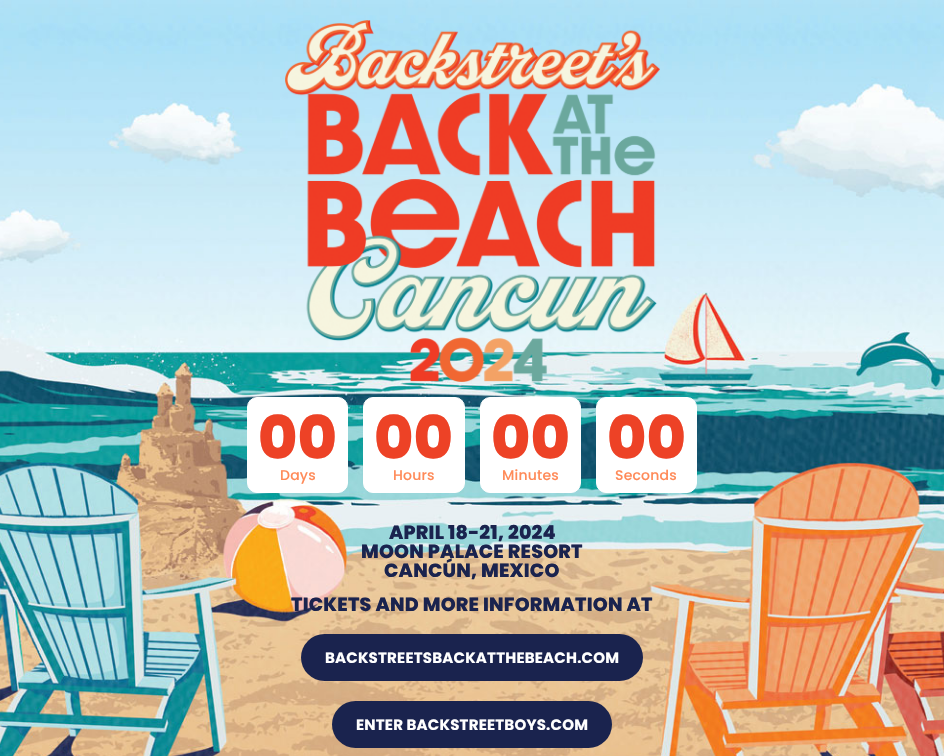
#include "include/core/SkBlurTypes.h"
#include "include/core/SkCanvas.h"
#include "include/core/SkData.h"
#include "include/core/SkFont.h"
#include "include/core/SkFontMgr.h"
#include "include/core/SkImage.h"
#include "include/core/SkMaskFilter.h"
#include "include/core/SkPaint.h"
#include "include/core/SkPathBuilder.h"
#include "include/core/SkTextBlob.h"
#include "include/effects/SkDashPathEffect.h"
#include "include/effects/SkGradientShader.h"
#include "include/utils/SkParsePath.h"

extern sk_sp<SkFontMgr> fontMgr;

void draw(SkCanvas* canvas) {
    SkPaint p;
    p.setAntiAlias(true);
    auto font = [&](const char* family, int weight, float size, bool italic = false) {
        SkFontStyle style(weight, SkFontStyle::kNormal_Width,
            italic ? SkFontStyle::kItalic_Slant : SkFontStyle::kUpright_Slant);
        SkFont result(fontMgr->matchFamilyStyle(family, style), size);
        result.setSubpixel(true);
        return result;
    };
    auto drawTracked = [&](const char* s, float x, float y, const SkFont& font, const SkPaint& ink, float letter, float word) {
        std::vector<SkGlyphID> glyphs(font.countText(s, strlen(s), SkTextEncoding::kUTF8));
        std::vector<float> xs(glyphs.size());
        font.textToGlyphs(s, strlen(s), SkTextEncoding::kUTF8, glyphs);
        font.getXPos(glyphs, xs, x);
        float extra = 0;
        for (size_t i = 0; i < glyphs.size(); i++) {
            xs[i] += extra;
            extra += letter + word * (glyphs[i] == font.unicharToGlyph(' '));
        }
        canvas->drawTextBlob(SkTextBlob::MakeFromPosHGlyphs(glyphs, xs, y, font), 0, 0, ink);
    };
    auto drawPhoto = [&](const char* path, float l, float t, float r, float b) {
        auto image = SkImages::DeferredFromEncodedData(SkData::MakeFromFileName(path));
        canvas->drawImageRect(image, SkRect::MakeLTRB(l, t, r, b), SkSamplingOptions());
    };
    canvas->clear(0xFFFFFFFF);
    drawPhoto("media/1.png", 0, 0, 944, 756);
    drawPhoto("media/2.png", 285, 20, 660, 382);
    p.setColor(0xFFFFFFFF);
    canvas->drawRoundRect(SkRect::MakeLTRB(247.5f, 397.5f, 347.5f, 492.5f), 9.5f, 9.5f, p);
    p.setStyle(SkPaint::kStroke_Style);
    p.setStrokeWidth(1);
    canvas->drawRoundRect(SkRect::MakeLTRB(247.5f, 397.5f, 347.5f, 492.5f), 9.5f, 9.5f, p);
    auto font1 = font("Poppins", 800, 60);
    p.setStyle(SkPaint::kFill_Style);
    p.setColor(0xFFED4226);
    drawTracked("00", 258, 459, font1, p, 0.2f, 0);
    auto font2 = font("Poppins", 500, 14);
    p.setColor(0xFFFF8A58);
    drawTracked("Days", 280, 480, font2, p, 0.2f, 0);
    p.setColor(0xFFFFFFFF);
    canvas->drawRoundRect(SkRect::MakeLTRB(363.5f, 397.5f, 464.5f, 492.5f), 9.5f, 9.5f, p);
    p.setStyle(SkPaint::kStroke_Style);
    canvas->drawRoundRect(SkRect::MakeLTRB(363.5f, 397.5f, 464.5f, 492.5f), 9.5f, 9.5f, p);
    p.setStyle(SkPaint::kFill_Style);
    p.setColor(0xFFED4226);
    drawTracked("00", 374, 459, font1, p, 0.2f, 0);
    p.setColor(0xFFFF8A58);
    drawTracked("Hours", 393, 480, font2, p, 0.2f, 0);
    p.setColor(0xFFFFFFFF);
    canvas->drawRoundRect(SkRect::MakeLTRB(480.5f, 397.5f, 580.5f, 492.5f), 9.5f, 9.5f, p);
    p.setStyle(SkPaint::kStroke_Style);
    canvas->drawRoundRect(SkRect::MakeLTRB(480.5f, 397.5f, 580.5f, 492.5f), 9.5f, 9.5f, p);
    p.setStyle(SkPaint::kFill_Style);
    p.setColor(0xFFED4226);
    drawTracked("00", 491, 459, font1, p, 0.2f, 0);
    p.setColor(0xFFFF8A58);
    drawTracked("Minutes", 502, 480, font2, p, 0.2f, 0);
    p.setColor(0xFFFFFFFF);
    canvas->drawRoundRect(SkRect::MakeLTRB(596.5f, 397.5f, 696.5f, 492.5f), 9.5f, 9.5f, p);
    p.setStyle(SkPaint::kStroke_Style);
    canvas->drawRoundRect(SkRect::MakeLTRB(596.5f, 397.5f, 696.5f, 492.5f), 9.5f, 9.5f, p);
    p.setStyle(SkPaint::kFill_Style);
    p.setColor(0xFFED4226);
    drawTracked("00", 607, 459, font1, p, 0.2f, 0);
    p.setColor(0xFFFF8A58);
    drawTracked("Seconds", 615, 480, font2, p, 0.2f, 0);
    auto font3 = font("Poppins", 800, 19);
    p.setColor(0xFF1A234E);
    {
        const struct { const char* s; float x, y; } items[] = {
            {"APRIL 18-21, 2024", 389, 539},
            {"MOON PALACE RESORT", 361, 558},
            {"CANCÚN, MEXICO", 384, 577},
            {"TICKETS AND MORE INFORMATION AT", 291, 611},
        };
        for (auto [s, x, y] : items) {
            drawTracked(s, x, y, font3, p, 0.2f, 0);
        }
    }
    canvas->drawRoundRect(SkRect::MakeLTRB(301, 634, 643, 681), 23.5f, 23.5f, p);
    auto font4 = font("Poppins", 700, 15);
    p.setColor(0xFFFFFFFF);
    drawTracked("BACKSTREETSBACKATTHEBEACH.COM", 325, 663, font4, p, 0.2f, 0);
    p.setColor(0xFF1A234E);
    canvas->drawRoundRect(SkRect::MakeLTRB(332, 701, 612, 748), 23.5f, 23.5f, p);
    p.setColor(0xFFFFFFFF);
    drawTracked("ENTER BACKSTREETBOYS.COM", 356, 730, font4, p, 0.2f, 0);
}
